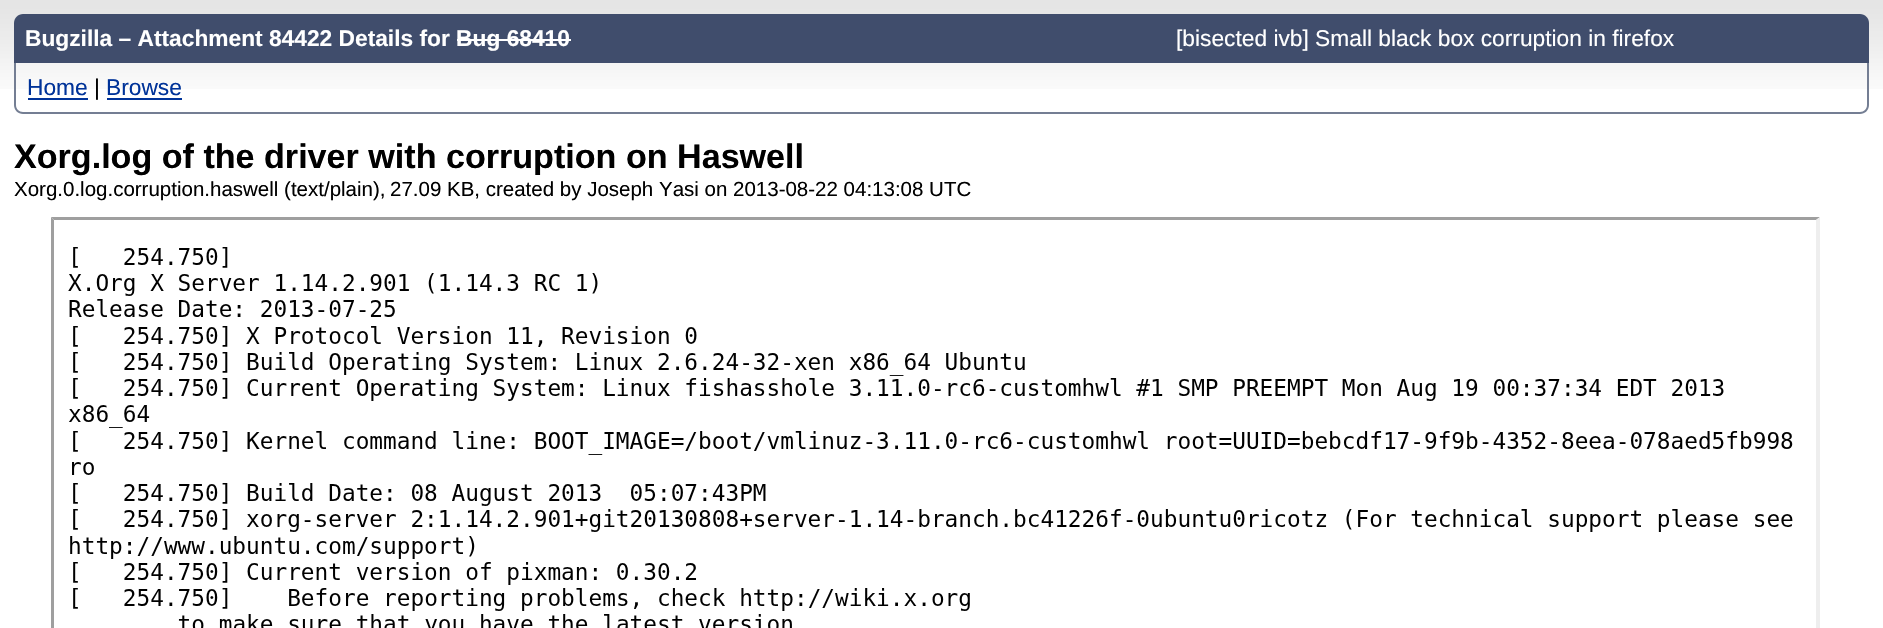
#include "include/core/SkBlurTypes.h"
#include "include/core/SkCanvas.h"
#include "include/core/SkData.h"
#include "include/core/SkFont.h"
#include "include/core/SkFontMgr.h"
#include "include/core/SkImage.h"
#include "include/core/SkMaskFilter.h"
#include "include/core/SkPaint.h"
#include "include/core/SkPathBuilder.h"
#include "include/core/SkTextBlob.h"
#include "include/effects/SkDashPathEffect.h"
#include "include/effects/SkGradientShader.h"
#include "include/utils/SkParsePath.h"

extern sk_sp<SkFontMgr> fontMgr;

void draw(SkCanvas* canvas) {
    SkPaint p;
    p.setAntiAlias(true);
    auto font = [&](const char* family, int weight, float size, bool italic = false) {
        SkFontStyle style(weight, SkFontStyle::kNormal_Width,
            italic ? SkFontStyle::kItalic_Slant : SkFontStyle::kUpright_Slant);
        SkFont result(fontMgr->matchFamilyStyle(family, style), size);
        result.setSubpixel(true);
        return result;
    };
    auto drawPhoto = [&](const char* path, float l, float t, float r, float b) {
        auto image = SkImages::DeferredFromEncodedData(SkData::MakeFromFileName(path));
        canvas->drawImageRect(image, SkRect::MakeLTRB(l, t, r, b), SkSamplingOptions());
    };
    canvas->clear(0xFFFFFFFF);
    drawPhoto("media/1.png", 0, 0, 1883, 89);
    p.setColor(0xFF404D6C);
    canvas->drawPath(SkPathBuilder().moveTo(23, 14).lineTo(1860, 14).cubicTo(1865, 14, 1869, 18, 1869, 23).lineTo(1869, 63).lineTo(14, 63).lineTo(14, 23).cubicTo(14, 18, 18, 14, 23, 14).close().detach(), p);
    auto font1 = font("Liberation Sans", 700, 22.75f);
    p.setColor(0xFFFFFFFF);
    canvas->drawString("Bugzilla – Attachment 84422 Details for Bug 68410", 25, 46, font1, p);
    canvas->drawRect(SkRect::MakeLTRB(457, 39, 571, 41), p);
    auto font2 = font("Liberation Sans", 400, 22.75f);
    canvas->drawString("[bisected ivb] Small black box corruption in firefox", 1176, 46, font2, p);
    p.setColor(0xFF747E93);
    canvas->drawPath(SkPathBuilder(SkPathFillType::kEvenOdd).moveTo(14, 63).lineTo(1869, 63).lineTo(1869, 105).cubicTo(1869, 110, 1865, 114, 1860, 114).lineTo(23, 114).cubicTo(18, 114, 14, 110, 14, 105).close().moveTo(16, 63).lineTo(1867, 63).lineTo(1867, 105).cubicTo(1867, 109, 1864, 112, 1860, 112).lineTo(23, 112).cubicTo(19, 112, 16, 109, 16, 105).close().detach(), p);
    p.setColor(0xFF003399);
    canvas->drawString("Home", 27, 95, font2, p);
    canvas->drawRect(SkRect::MakeLTRB(28, 98, 88, 100), p);
    p.setColor(0xFF000000);
    canvas->drawString("|", 94, 95, font2, p);
    p.setColor(0xFF003399);
    canvas->drawString("Browse", 106, 95, font2, p);
    canvas->drawRect(SkRect::MakeLTRB(107, 98, 182, 100), p);
    auto font3 = font("Liberation Sans", 700, 34.1f);
    p.setColor(0xFF000000);
    canvas->drawString("Xorg.log of the driver with corruption on Haswell", 14, 168, font3, p);
    auto font4 = font("Liberation Sans", 400, 20.5f);
    canvas->drawString("Xorg.0.log.corruption.haswell (text/plain),", 14, 196, font4, p);
    canvas->drawString("27.09 KB, created by Joseph Yasi on 2013-08-22 04:13:08 UTC", 390, 196, font4, p);
    p.setColor(0xFF9F9F9F);
    canvas->drawPath(SkPathBuilder().moveTo(51, 217).lineTo(1820, 217).lineTo(1816, 220).lineTo(54, 220).close().detach(), p);
    canvas->drawPath(SkPathBuilder().moveTo(51, 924).lineTo(51, 217).lineTo(54, 220).lineTo(54, 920).close().detach(), p);
    drawPhoto("media/2.png", 68, 247, 1793, 628);
    p.setColor(0xFFEEEEEE);
    canvas->drawPath(SkPathBuilder().moveTo(1820, 217).lineTo(1820, 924).lineTo(1816, 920).lineTo(1816, 220).close().detach(), p);
}
